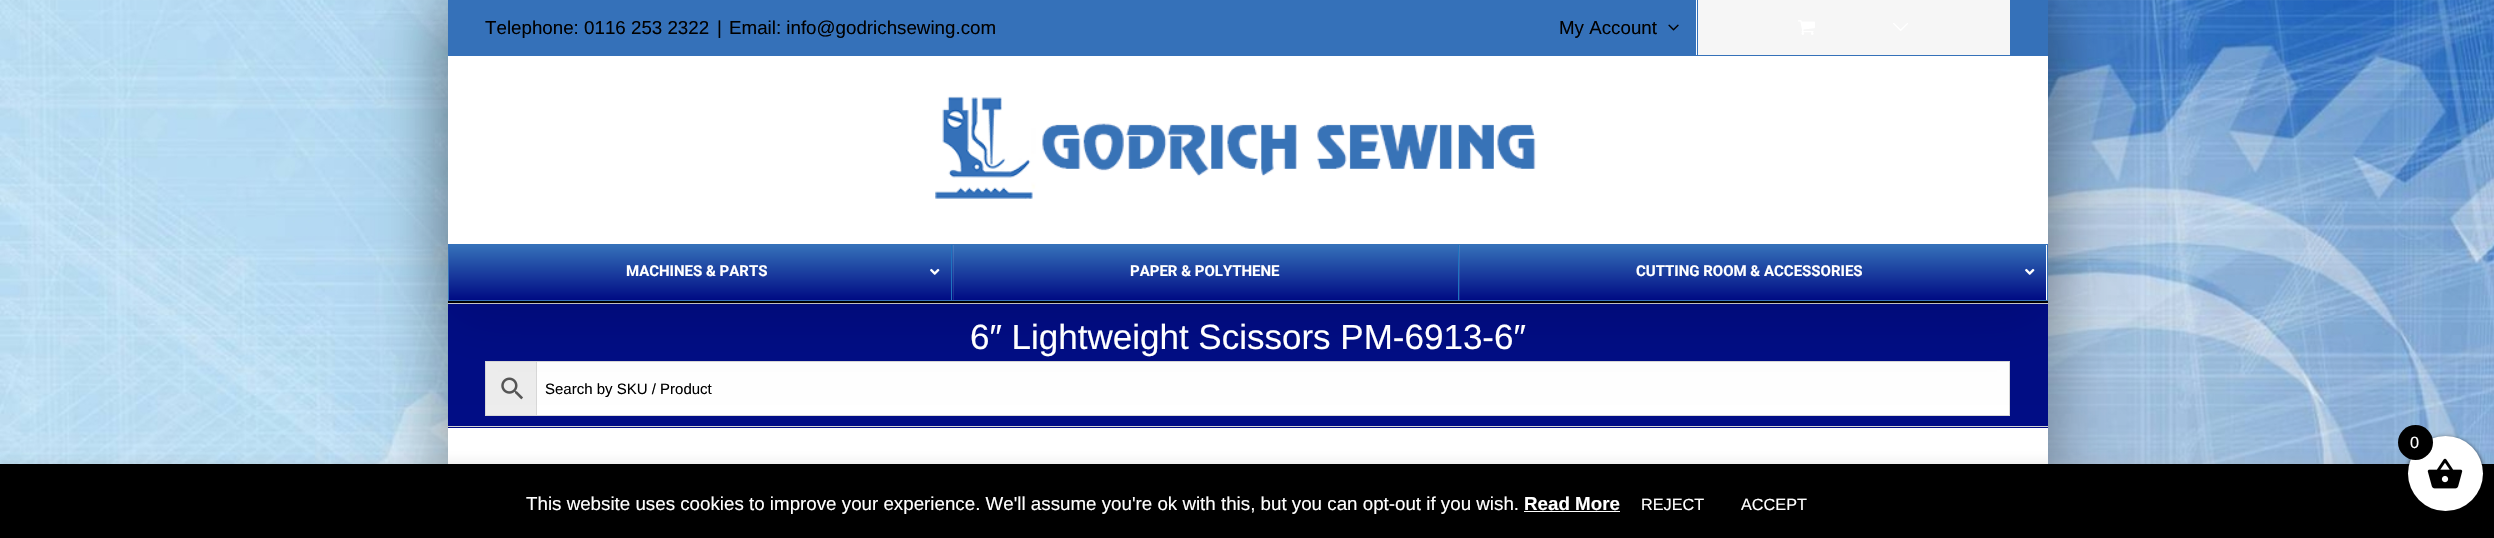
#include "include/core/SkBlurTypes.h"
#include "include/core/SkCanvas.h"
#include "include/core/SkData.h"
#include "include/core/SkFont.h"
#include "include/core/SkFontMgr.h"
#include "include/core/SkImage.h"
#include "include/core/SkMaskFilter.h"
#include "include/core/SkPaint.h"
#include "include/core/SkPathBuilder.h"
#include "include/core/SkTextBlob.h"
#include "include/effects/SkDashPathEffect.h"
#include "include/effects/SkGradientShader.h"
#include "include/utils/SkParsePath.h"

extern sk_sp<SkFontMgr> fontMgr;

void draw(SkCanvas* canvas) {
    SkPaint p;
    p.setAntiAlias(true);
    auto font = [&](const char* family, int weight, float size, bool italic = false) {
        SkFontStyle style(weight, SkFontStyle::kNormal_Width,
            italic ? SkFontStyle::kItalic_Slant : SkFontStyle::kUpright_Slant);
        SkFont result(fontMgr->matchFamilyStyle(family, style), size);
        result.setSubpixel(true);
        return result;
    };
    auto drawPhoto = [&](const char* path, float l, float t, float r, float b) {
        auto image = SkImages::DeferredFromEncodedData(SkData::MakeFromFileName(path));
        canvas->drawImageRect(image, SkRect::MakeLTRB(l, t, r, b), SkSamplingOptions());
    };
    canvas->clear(0xFFFFFFFF);
    drawPhoto("media/1.png", 0, 0, 2494, 464);
    p.setColor(0x59000000);
    p.setMaskFilter(SkMaskFilter::MakeBlur(kNormal_SkBlurStyle, 31));
    canvas->drawRect(SkRect::MakeLTRB(441, -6, 2054, 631), p);
    p.setMaskFilter(nullptr);
    {
        const struct { float l, t, r, b; SkColor color; } items[] = {
            {448, 304, 2048, 428, 0xFF010D85},
            {448, 303, 2048, 304, 0xFFD2D3D4},
            {486, 362, 536, 415, 0xFFEDEDED},
        };
        for (auto [l, t, r, b, color] : items) {
            p.setColor(color);
            canvas->drawRect(SkRect::MakeLTRB(l, t, r, b), p);
        }
    }
    p.setStyle(SkPaint::kStroke_Style);
    p.setStrokeWidth(1);
    p.setColor(0xFFD8D8D8);
    canvas->drawRect(SkRect::MakeLTRB(485.5f, 361.5f, 537.5f, 415.5f), p);
    drawPhoto("media/7.png", 501, 377, 523, 400);
    p.setStyle(SkPaint::kFill_Style);
    p.setColor(0xFFFFFFFF);
    canvas->drawRect(SkRect::MakeLTRB(536.5f, 361.5f, 2009.5f, 415.5f), p);
    p.setStyle(SkPaint::kStroke_Style);
    p.setColor(0xFFD8D8D8);
    canvas->drawRect(SkRect::MakeLTRB(536.5f, 361.5f, 2009.5f, 415.5f), p);
    p.setStyle(SkPaint::kFill_Style);
    p.setColor(0x24000000);
    p.setMaskFilter(SkMaskFilter::MakeBlur(kNormal_SkBlurStyle, 31));
    canvas->drawRect(SkRect::MakeLTRB(450, 15, 2045, 313), p);
    p.setMaskFilter(nullptr);
    p.setColor(0xFF3571B9);
    canvas->drawRect(SkRect::MakeLTRB(448, 0, 2048, 56), p);
    auto font1 = font("Liberation Sans", 400, 18.75f);
    p.setColor(0xFF000000);
    {
        const struct { const char* s; float x, y; } items[] = {
            {"Telephone: 0116 253 2322", 485, 34},
            {"|", 717, 34},
            {"Email: info@godrichsewing.com", 729, 34},
            {"My Account", 1559, 34},
        };
        for (auto [s, x, y] : items) {
            canvas->drawString(s, x, y, font1, p);
        }
    }
    drawPhoto("media/2.png", 1668, 24, 1679, 31);
    p.setColor(0xFFFFFFFF);
    canvas->drawRect(SkRect::MakeLTRB(1696, 0, 1697, 55), p);
    p.setColor(0xFFF6F6F6);
    canvas->drawRect(SkRect::MakeLTRB(1698, 0, 2010, 55), p);
    drawPhoto("media/3.png", 1798, 20, 1815, 35);
    drawPhoto("media/4.png", 1893, 23, 1908, 31);
    p.setColor(0xFFFFFFFF);
    canvas->drawRect(SkRect::MakeLTRB(448, 56, 2048, 244), p);
    drawPhoto("media/5.png", 935, 96, 1536, 199);
    p.setColor(0xFF000000);
    canvas->drawRect(SkRect::MakeLTRB(448, 301, 2048, 303), p);
    p.setColor(0xFFFFFFFF);
    canvas->drawRect(SkRect::MakeLTRB(2046, 245, 2047, 300), p);
    p.setStyle(SkPaint::kStroke_Style);
    p.setColor(0xFF3571B9);
    canvas->drawRect(SkRect::MakeLTRB(448.5f, 244.5f, 2047.5f, 300.5f), p);
    p.setStyle(SkPaint::kFill_Style);
    {
        const SkColor colors[] = {0xFF3571B9, 0xFF000B84};
        const float stops[] = {0, 1};
        const SkPoint ends[] = {{700, 245}, {700, 300}};
        p.setShader(SkGradientShader::MakeLinear(ends, colors, stops, 2, SkTileMode::kClamp));
        p.setAlpha(255);
    }
    canvas->drawRect(SkRect::MakeLTRB(449, 245, 951, 300), p);
    auto font2 = font("Roboto", 700, 15);
    p.setShader(nullptr);
    p.setColor(0xFFFFFFFF);
    canvas->drawString("MACHINES & PARTS", 626, 276, font2, p);
    drawPhoto("media/6.png", 930, 268, 940, 275);
    {
        const SkColor colors[] = {0xFF3571B9, 0xFF000B84};
        const float stops[] = {0, 1};
        const SkPoint ends[] = {{1205, 245}, {1205, 300}};
        p.setShader(SkGradientShader::MakeLinear(ends, colors, stops, 2, SkTileMode::kClamp));
        p.setAlpha(255);
    }
    canvas->drawRect(SkRect::MakeLTRB(952, 245, 1458, 300), p);
    p.setShader(nullptr);
    p.setColor(0x1AFFFFFF);
    canvas->drawRect(SkRect::MakeLTRB(953, 245, 954, 300), p);
    p.setColor(0xFF1E73BE);
    canvas->drawRect(SkRect::MakeLTRB(951, 245, 952, 300), p);
    p.setColor(0xFFFFFFFF);
    canvas->drawString("PAPER & POLYTHENE", 1130, 276, font2, p);
    {
        const SkColor colors[] = {0xFF3571B9, 0xFF000B84};
        const float stops[] = {0, 1};
        const SkPoint ends[] = {{1753, 245}, {1753, 300}};
        p.setShader(SkGradientShader::MakeLinear(ends, colors, stops, 2, SkTileMode::kClamp));
        p.setAlpha(255);
    }
    canvas->drawRect(SkRect::MakeLTRB(1459, 245, 2046, 300), p);
    p.setShader(nullptr);
    p.setColor(0x1AFFFFFF);
    canvas->drawRect(SkRect::MakeLTRB(1459, 245, 1460, 300), p);
    p.setColor(0xFF1E73BE);
    canvas->drawRect(SkRect::MakeLTRB(1458, 245, 1459, 300), p);
    p.setColor(0xFFFFFFFF);
    canvas->drawString("CUTTING ROOM & ACCESSORIES", 1636, 276, font2, p);
    drawPhoto("media/6.png", 2025, 268, 2035, 275);
    p.setColor(0xFFD2D3D4);
    canvas->drawRect(SkRect::MakeLTRB(448, 426, 2048, 427), p);
    auto font3 = font("Liberation Sans", 400, 35);
    p.setColor(0xFFFFFFFF);
    canvas->drawString("6″ Lightweight Scissors PM-6913-6″", 970, 349, font3, p);
    auto font4 = font("Liberation Sans", 400, 15);
    p.setColor(0xFF000000);
    canvas->drawString("Search by SKU / Product", 545, 394, font4, p);
    p.setColor(0xFFFFFFFF);
    canvas->drawRect(SkRect::MakeLTRB(448, 428, 2048, 464), p);
    p.setColor(0x4DACABAB);
    p.setMaskFilter(SkMaskFilter::MakeBlur(kNormal_SkBlurStyle, 6));
    canvas->drawRect(SkRect::MakeLTRB(0, 463, 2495, 538), p);
    p.setMaskFilter(nullptr);
    p.setColor(0xFF000000);
    canvas->drawRect(SkRect::MakeLTRB(0, 464, 2494, 538), p);
    p.setMaskFilter(SkMaskFilter::MakeBlur(kNormal_SkBlurStyle, 2.5f));
    canvas->drawRoundRect(SkRect::MakeLTRB(2408, 438, 2483, 513), 37.5f, 37.5f, p);
    p.setMaskFilter(nullptr);
    p.setColor(0xFFFFFFFF);
    canvas->drawCircle(2445.5f, 473.5f, 37.5f, p);
    drawPhoto("media/8.png", 2427, 458, 2463, 489);
    p.setColor(0xFF000000);
    canvas->drawCircle(2415.5f, 442.5f, 17.5f, p);
    auto font5 = font("Liberation Sans", 400, 16.25f);
    p.setColor(0xFFFFFFFF);
    canvas->drawString("0", 2410, 448, font5, p);
    canvas->drawString("This website uses cookies to improve your experience. We'll assume you're ok with this, but you can opt-out if you wish.", 526, 510, font1, p);
    auto font6 = font("Liberation Sans", 700, 18.75f);
    canvas->drawString("Read More", 1524, 510, font6, p);
    canvas->drawRect(SkRect::MakeLTRB(1524, 511, 1620, 512), p);
    canvas->drawString("REJECT", 1641, 510, font5, p);
    canvas->drawString("ACCEPT", 1741, 510, font5, p);
}
